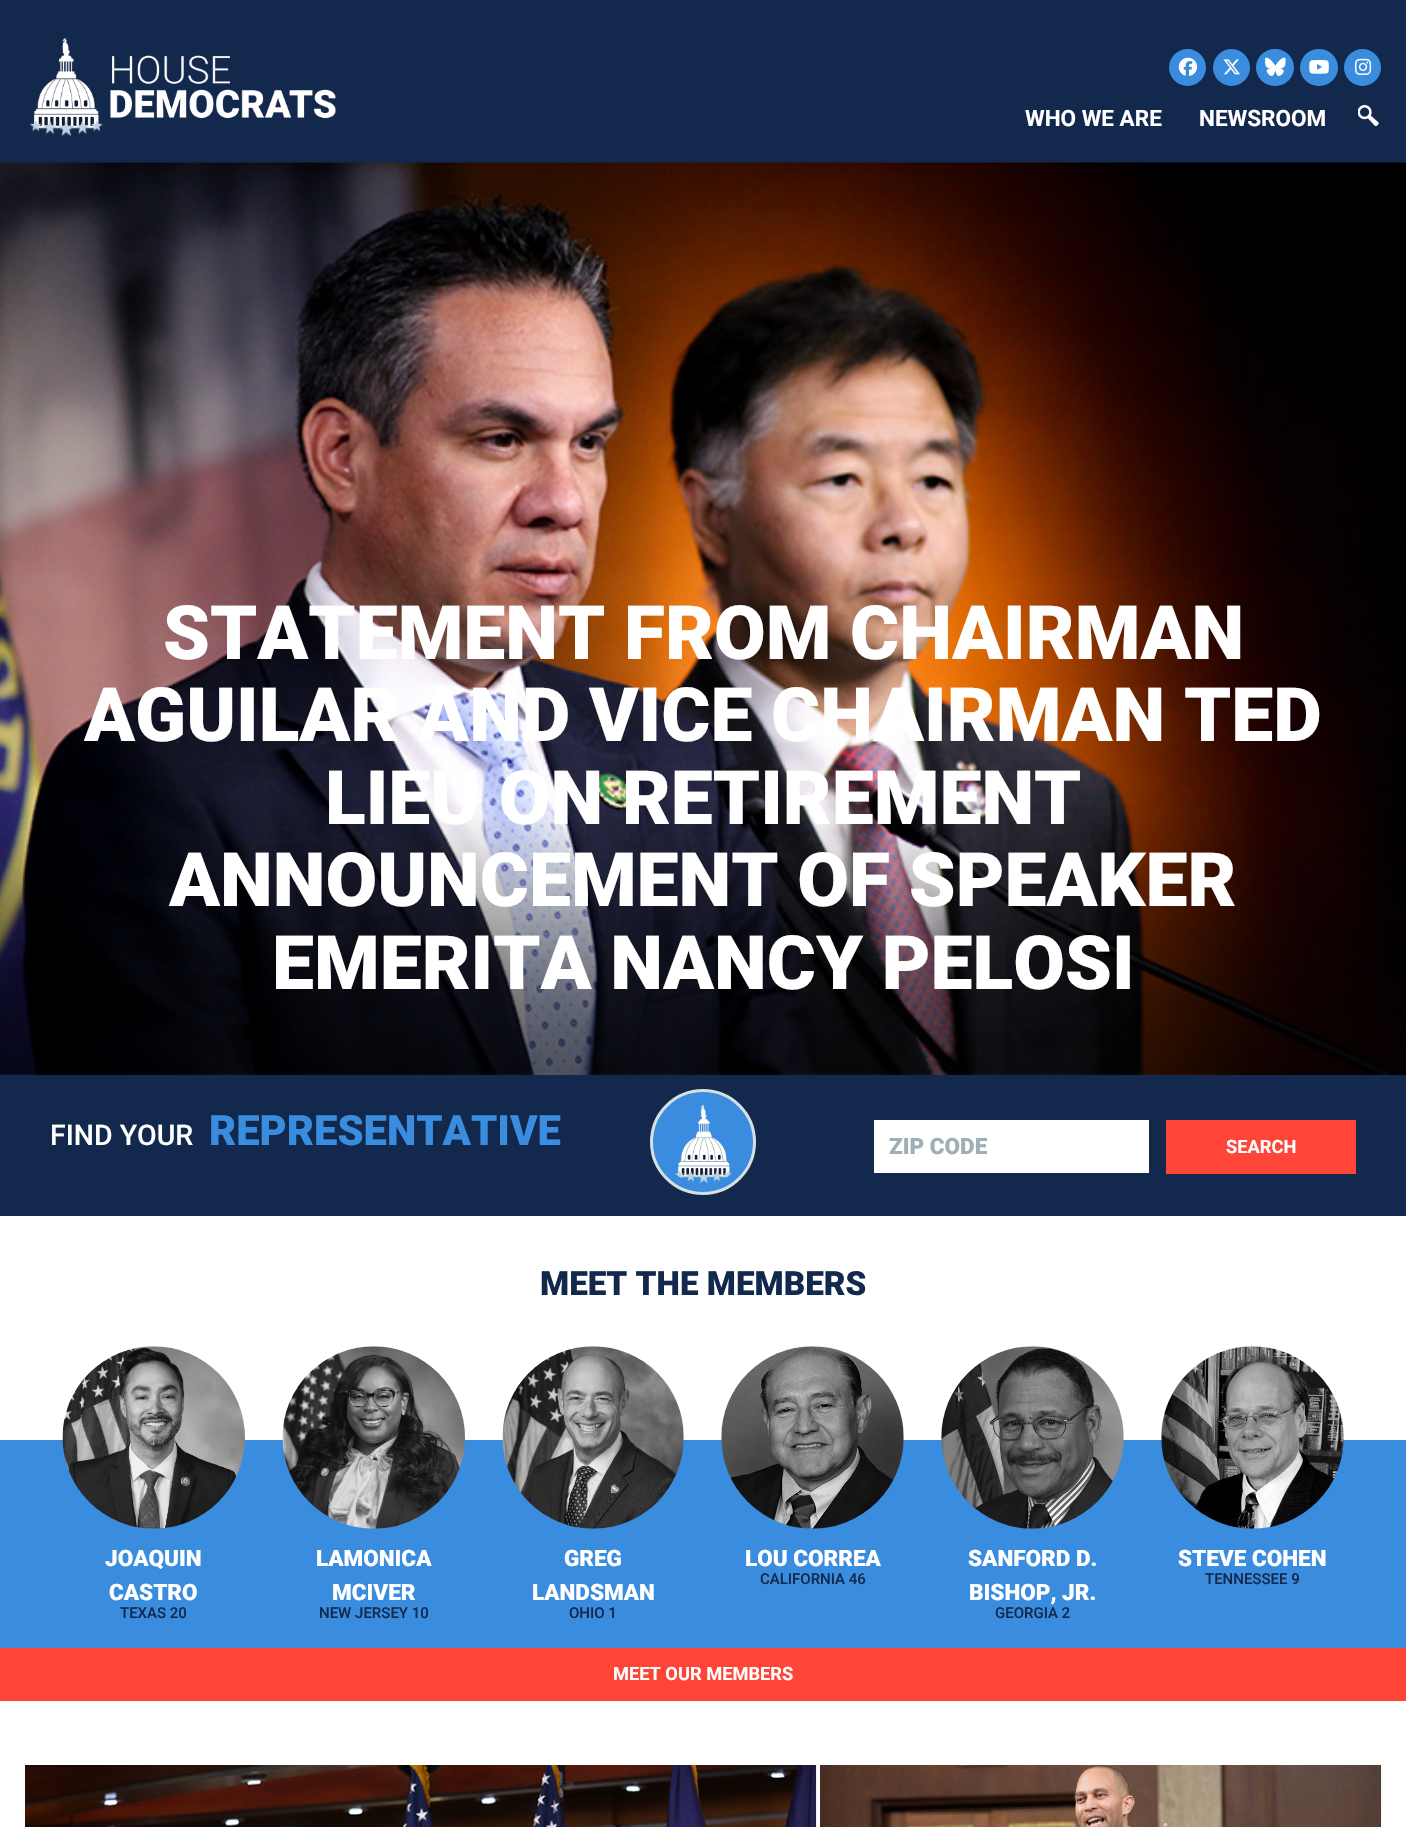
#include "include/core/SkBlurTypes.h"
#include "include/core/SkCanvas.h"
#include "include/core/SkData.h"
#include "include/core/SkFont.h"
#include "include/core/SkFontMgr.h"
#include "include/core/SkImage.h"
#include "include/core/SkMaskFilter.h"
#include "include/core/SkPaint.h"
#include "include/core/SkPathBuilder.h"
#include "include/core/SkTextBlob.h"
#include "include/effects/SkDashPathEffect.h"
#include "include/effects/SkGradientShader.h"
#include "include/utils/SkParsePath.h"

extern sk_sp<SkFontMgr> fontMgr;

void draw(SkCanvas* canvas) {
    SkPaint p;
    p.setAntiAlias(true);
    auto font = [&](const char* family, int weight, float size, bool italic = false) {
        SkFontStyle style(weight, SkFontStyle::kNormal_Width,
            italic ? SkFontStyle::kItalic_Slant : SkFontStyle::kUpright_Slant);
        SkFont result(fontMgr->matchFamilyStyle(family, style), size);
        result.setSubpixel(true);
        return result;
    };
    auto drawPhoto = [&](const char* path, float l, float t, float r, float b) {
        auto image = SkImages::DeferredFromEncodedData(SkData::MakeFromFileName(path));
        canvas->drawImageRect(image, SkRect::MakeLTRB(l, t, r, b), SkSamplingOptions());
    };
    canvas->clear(0xFFFFFFFF);
    p.setColor(0xFF12284C);
    canvas->drawRect(SkRect::MakeLTRB(0, 0, 1406, 163), p);
    drawPhoto("media/1.png", 30, 38, 336, 137);
    p.setColor(0xFF3A8DDE);
    canvas->drawCircle(1187.5f, 67.5f, 18.5f, p);
    drawPhoto("media/2.png", 1178, 57, 1198, 76);
    canvas->drawCircle(1231.5f, 67.5f, 18.5f, p);
    drawPhoto("media/3.png", 1223, 59, 1240, 75);
    canvas->drawRoundRect(SkRect::MakeLTRB(1256, 49, 1294, 86), 18.5f, 18.5f, p);
    drawPhoto("media/4.png", 1265, 57, 1286, 76);
    canvas->drawRoundRect(SkRect::MakeLTRB(1300, 49, 1338, 86), 18.5f, 18.5f, p);
    drawPhoto("media/5.png", 1309, 60, 1329, 74);
    canvas->drawCircle(1362.5f, 67.5f, 18.5f, p);
    drawPhoto("media/6.png", 1355, 58, 1372, 75);
    auto font1 = font("Roboto", 700, 22.5f);
    p.setColor(0xFFFFFFFF);
    canvas->drawString("WHO WE ARE", 1025, 126, font1, p);
    canvas->drawString("NEWSROOM", 1199, 126, font1, p);
    drawPhoto("media/7.png", 1358, 105, 1379, 126);
    drawPhoto("media/8.png", 0, 162, 1406, 1075);
    auto font2 = font("Roboto", 900, 75);
    canvas->drawString("STATEMENT FROM CHAIRMAN", 163, 659, font2, p);
    canvas->drawString("AGUILAR AND VICE CHAIRMAN TED", 84, 741, font2, p);
    drawPhoto("media/9.png", 0, 803, 1406, 1075);
    {
        const struct { const char* s; float x, y; } items[] = {
            {"LIEU ON RETIREMENT", 325, 824},
            {"ANNOUNCEMENT OF SPEAKER", 169, 906},
            {"EMERITA NANCY PELOSI", 272, 989},
        };
        for (auto [s, x, y] : items) {
            canvas->drawString(s, x, y, font2, p);
        }
    }
    p.setColor(0xFF12284C);
    canvas->drawRect(SkRect::MakeLTRB(0, 1075, 1406, 1216), p);
    auto font3 = font("Roboto", 500, 28.5f);
    p.setColor(0xFFFFFFFF);
    canvas->drawString("FIND YOUR", 50, 1145, font3, p);
    auto font4 = font("Roboto", 900, 41.75f);
    p.setColor(0xFF3A8DDE);
    canvas->drawString("REPRESENTATIVE", 209, 1145, font4, p);
    canvas->drawCircle(703, 1142, 51.5f, p);
    p.setStyle(SkPaint::kStroke_Style);
    p.setStrokeWidth(3);
    p.setColor(0xFFD8DFE1);
    canvas->drawCircle(703, 1142, 51.5f, p);
    drawPhoto("media/10.png", 675, 1104, 732, 1184);
    p.setStyle(SkPaint::kFill_Style);
    p.setColor(0xFFFFFFFF);
    canvas->drawRect(SkRect::MakeLTRB(874, 1120, 1149, 1173), p);
    auto font5 = font("Roboto", 900, 22.5f);
    p.setColor(0xFF9EB0B5);
    canvas->drawString("ZIP CODE", 889, 1154, font5, p);
    p.setColor(0xFFFF4438);
    canvas->drawRect(SkRect::MakeLTRB(1166, 1120, 1356, 1174), p);
    auto font6 = font("Roboto", 700, 18.25f);
    p.setColor(0xFFFFFFFF);
    canvas->drawString("SEARCH", 1226, 1153, font6, p);
    auto font7 = font("Roboto", 900, 33.25f);
    p.setColor(0xFF12284C);
    canvas->drawString("MEET THE MEMBERS", 540, 1295, font7, p);
    p.setColor(0xFF3A8DDE);
    canvas->drawRect(SkRect::MakeLTRB(0, 1440, 1406, 1648), p);
    drawPhoto("media/11.png", 62, 1346, 245, 1529);
    p.setColor(0xFFFFFFFF);
    canvas->drawString("JOAQUIN", 105, 1566, font5, p);
    canvas->drawString("CASTRO", 109, 1600, font5, p);
    auto font8 = font("Roboto", 500, 15);
    p.setColor(0xFF12284C);
    canvas->drawString("TEXAS 20", 120, 1618, font8, p);
    drawPhoto("media/12.png", 282, 1346, 465, 1529);
    p.setColor(0xFFFFFFFF);
    canvas->drawString("LAMONICA", 316, 1566, font5, p);
    canvas->drawString("MCIVER", 332, 1600, font5, p);
    p.setColor(0xFF12284C);
    canvas->drawString("NEW JERSEY 10", 319, 1618, font8, p);
    drawPhoto("media/13.png", 502, 1346, 684, 1529);
    p.setColor(0xFFFFFFFF);
    canvas->drawString("GREG", 564, 1566, font5, p);
    canvas->drawString("LANDSMAN", 532, 1600, font5, p);
    p.setColor(0xFF12284C);
    canvas->drawString("OHIO 1", 569, 1618, font8, p);
    drawPhoto("media/14.png", 721, 1346, 904, 1529);
    p.setColor(0xFFFFFFFF);
    canvas->drawString("LOU CORREA", 745, 1566, font5, p);
    p.setColor(0xFF12284C);
    canvas->drawString("CALIFORNIA 46", 760, 1584, font8, p);
    drawPhoto("media/15.png", 941, 1346, 1124, 1529);
    p.setColor(0xFFFFFFFF);
    canvas->drawString("SANFORD D.", 968, 1566, font5, p);
    canvas->drawString("BISHOP, JR.", 969, 1600, font5, p);
    p.setColor(0xFF12284C);
    canvas->drawString("GEORGIA 2", 995, 1618, font8, p);
    drawPhoto("media/16.png", 1161, 1346, 1344, 1529);
    p.setColor(0xFFFFFFFF);
    canvas->drawString("STEVE COHEN", 1178, 1566, font5, p);
    p.setColor(0xFF12284C);
    canvas->drawString("TENNESSEE 9", 1205, 1584, font8, p);
    p.setColor(0xFFFF4438);
    canvas->drawRect(SkRect::MakeLTRB(0, 1648, 1406, 1701), p);
    p.setColor(0xFFFFFFFF);
    canvas->drawString("MEET OUR MEMBERS", 613, 1680, font6, p);
    drawPhoto("media/17.png", 25, 1765, 817, 1827);
    drawPhoto("media/18.png", 820, 1765, 1382, 1827);
}
